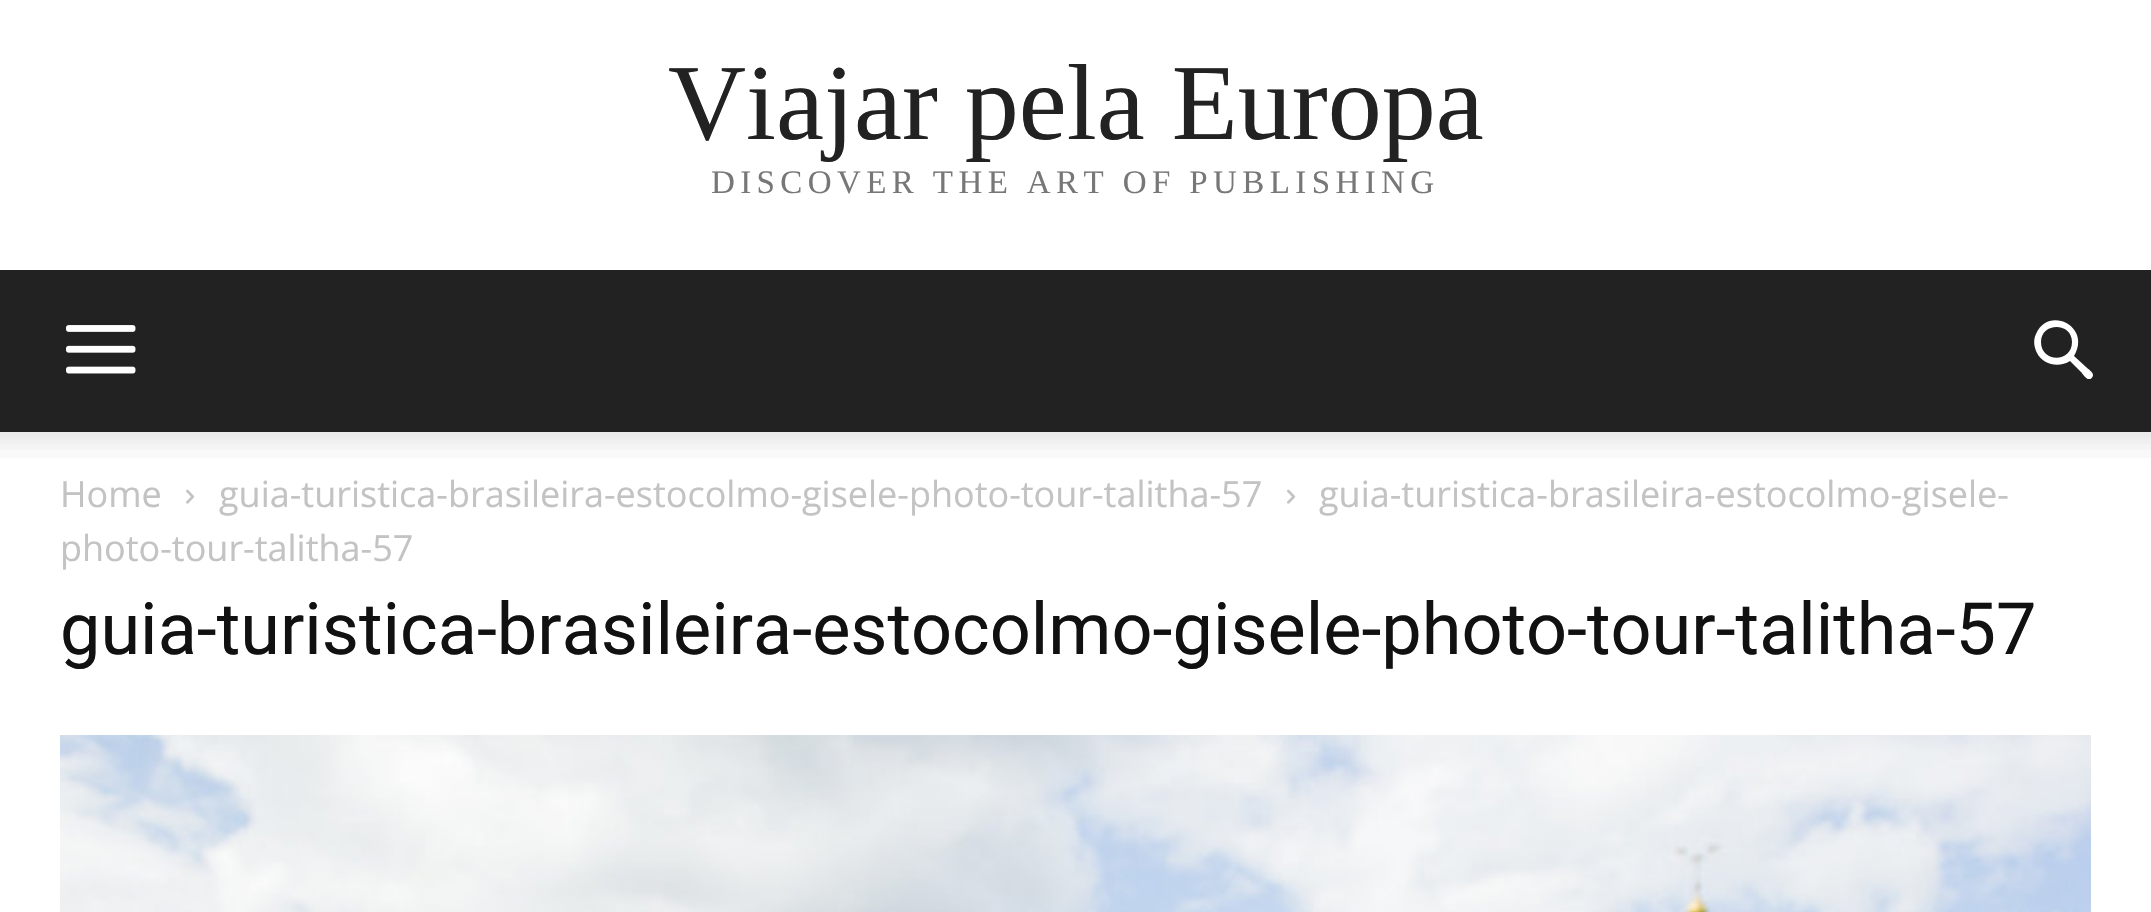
#include "include/core/SkBlurTypes.h"
#include "include/core/SkCanvas.h"
#include "include/core/SkData.h"
#include "include/core/SkFont.h"
#include "include/core/SkFontMgr.h"
#include "include/core/SkImage.h"
#include "include/core/SkMaskFilter.h"
#include "include/core/SkPaint.h"
#include "include/core/SkPathBuilder.h"
#include "include/core/SkTextBlob.h"
#include "include/effects/SkDashPathEffect.h"
#include "include/effects/SkGradientShader.h"
#include "include/utils/SkParsePath.h"

extern sk_sp<SkFontMgr> fontMgr;

void draw(SkCanvas* canvas) {
    SkPaint p;
    p.setAntiAlias(true);
    auto font = [&](const char* family, int weight, float size, bool italic = false) {
        SkFontStyle style(weight, SkFontStyle::kNormal_Width,
            italic ? SkFontStyle::kItalic_Slant : SkFontStyle::kUpright_Slant);
        SkFont result(fontMgr->matchFamilyStyle(family, style), size);
        result.setSubpixel(true);
        return result;
    };
    auto drawTracked = [&](const char* s, float x, float y, const SkFont& font, const SkPaint& ink, float letter, float word) {
        std::vector<SkGlyphID> glyphs(font.countText(s, strlen(s), SkTextEncoding::kUTF8));
        std::vector<float> xs(glyphs.size());
        font.textToGlyphs(s, strlen(s), SkTextEncoding::kUTF8, glyphs);
        font.getXPos(glyphs, xs, x);
        float extra = 0;
        for (size_t i = 0; i < glyphs.size(); i++) {
            xs[i] += extra;
            extra += letter + word * (glyphs[i] == font.unicharToGlyph(' '));
        }
        canvas->drawTextBlob(SkTextBlob::MakeFromPosHGlyphs(glyphs, xs, y, font), 0, 0, ink);
    };
    auto drawPhoto = [&](const char* path, float l, float t, float r, float b) {
        auto image = SkImages::DeferredFromEncodedData(SkData::MakeFromFileName(path));
        canvas->drawImageRect(image, SkRect::MakeLTRB(l, t, r, b), SkSamplingOptions());
    };
    canvas->clear(0xFFFFFFFF);
    auto font1 = font("Liberation Serif", 400, 108);
    p.setColor(0xFF222222);
    canvas->drawString("Viajar pela Europa", 668, 139, font1, p);
    auto font2 = font("Liberation Serif", 400, 33);
    p.setColor(0xFF777777);
    drawTracked("DISCOVER THE ART OF PUBLISHING", 711, 193, font2, p, 5.4f, 0);
    p.setColor(0xFF222222);
    canvas->drawRect(SkRect::MakeLTRB(0, 270, 2151, 432), p);
    drawPhoto("media/1.png", 66, 325, 136, 374);
    p.setColor(0xFFFFFFFF);
    canvas->drawPath(SkPathBuilder().moveTo(2072, 342).cubicTo(2072, 363, 2041, 363, 2041, 342).cubicTo(2041, 322, 2072, 322, 2072, 342).close().moveTo(2093, 375).cubicTo(2093, 372, 2088, 369, 2086, 367).lineTo(2074, 356).cubicTo(2092, 326, 2048, 305, 2036, 334).cubicTo(2033, 340, 2034, 347, 2037, 353).cubicTo(2043, 365, 2059, 368, 2070, 361).lineTo(2081, 372).cubicTo(2083, 374, 2086, 380, 2090, 379).cubicTo(2091, 379, 2093, 377, 2093, 375).close().detach(), p);
    drawPhoto("media/2.png", 0, 432, 2151, 458);
    auto font3 = font("Open Sans", 400, 36);
    p.setColor(0xFFC3C3C3);
    canvas->drawString("Home", 60, 507, font3, p);
    drawPhoto("media/3.png", 186, 489, 195, 504);
    canvas->drawString("guia-turistica-brasileira-estocolmo-gisele-photo-tour-talitha-57", 219, 507, font3, p);
    drawPhoto("media/3.png", 1287, 489, 1296, 504);
    canvas->drawString("guia-turistica-brasileira-estocolmo-gisele-", 1319, 507, font3, p);
    canvas->drawString("photo-tour-talitha-57", 60, 561, font3, p);
    auto font4 = font("Roboto", 400, 72);
    p.setColor(0xFF111111);
    canvas->drawString("guia-turistica-brasileira-estocolmo-gisele-photo-tour-talitha-57", 60, 654, font4, p);
    drawPhoto("media/4.png", 60, 735, 2091, 912);
}
